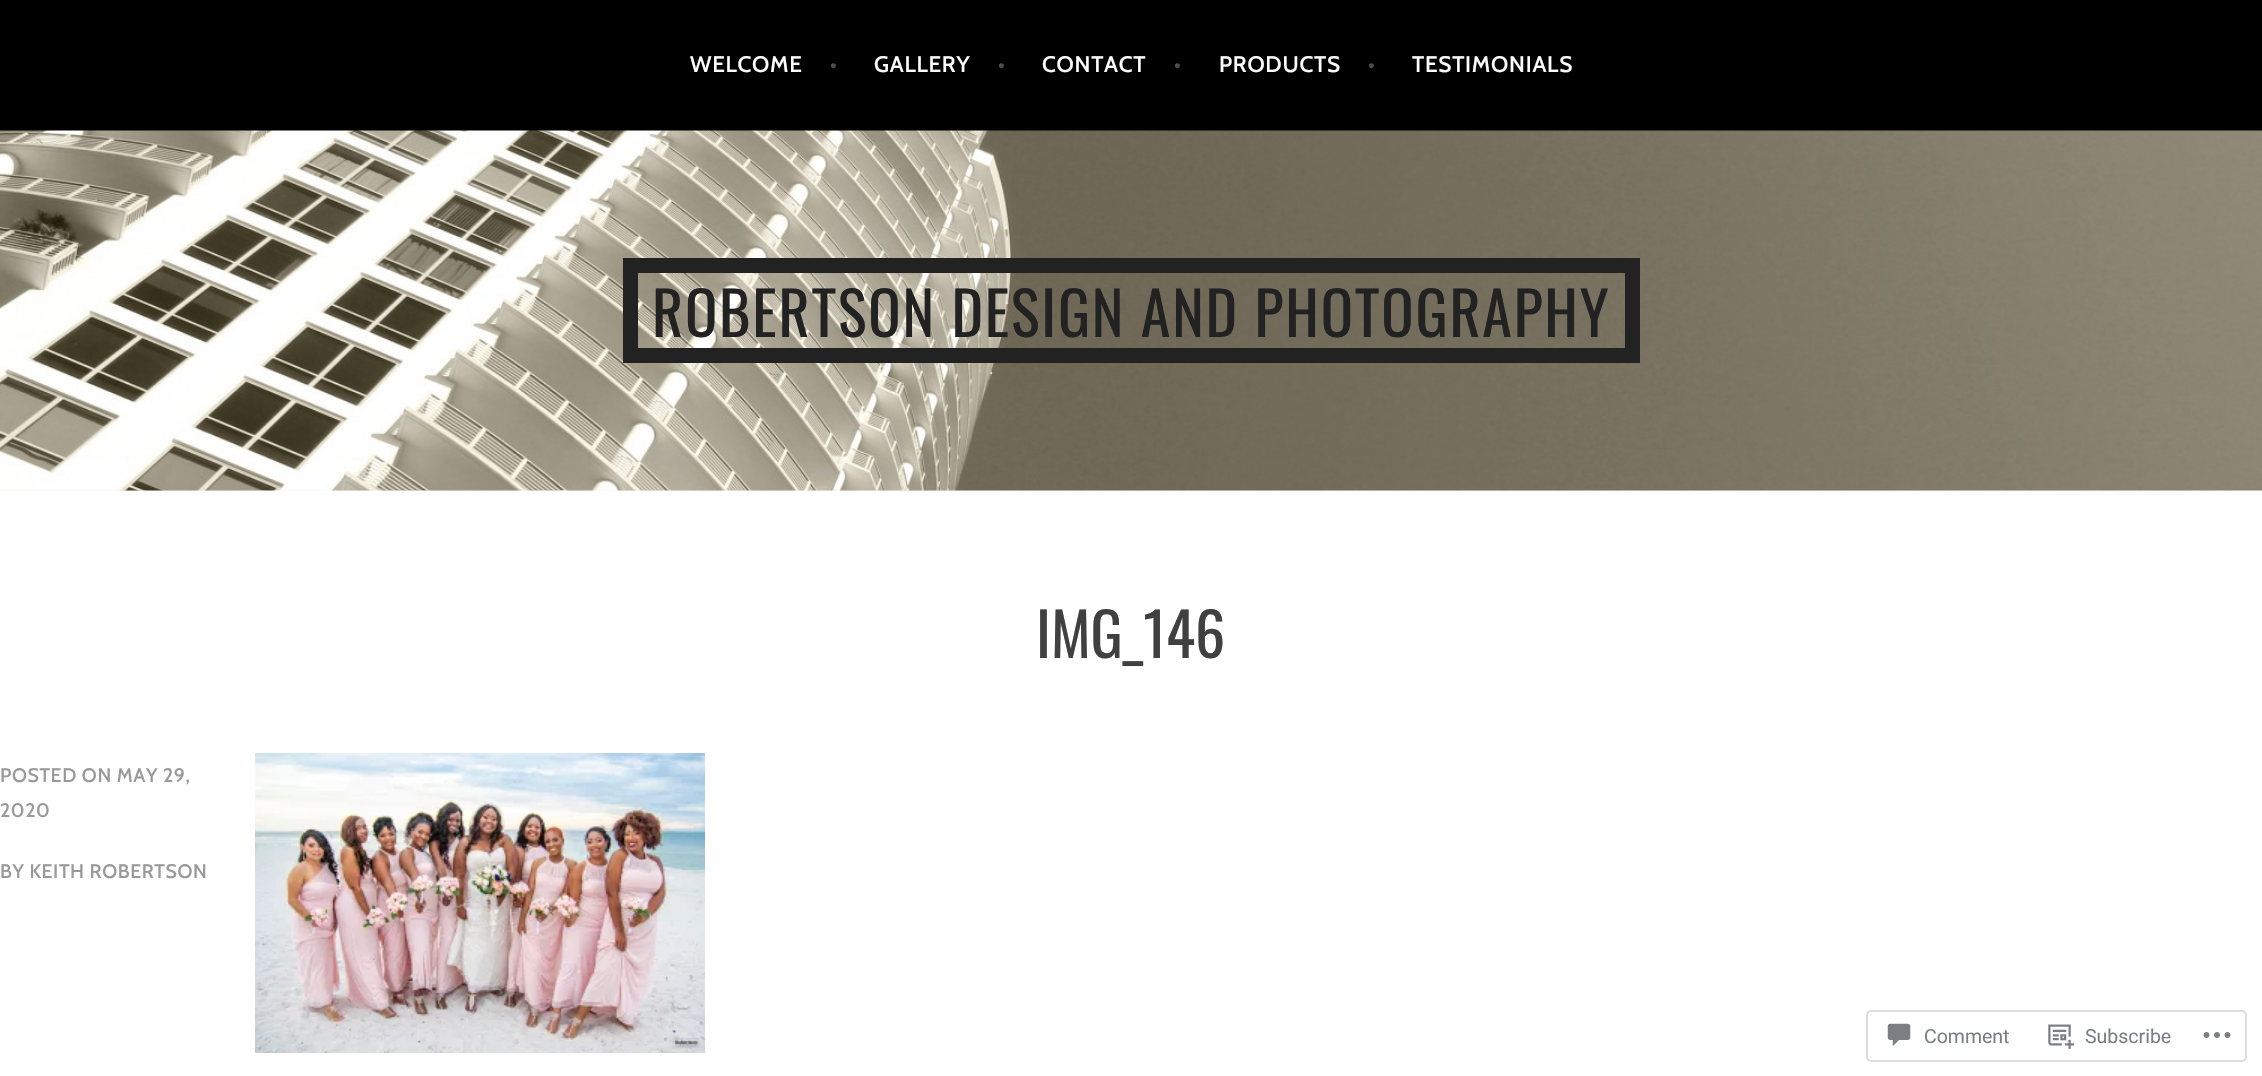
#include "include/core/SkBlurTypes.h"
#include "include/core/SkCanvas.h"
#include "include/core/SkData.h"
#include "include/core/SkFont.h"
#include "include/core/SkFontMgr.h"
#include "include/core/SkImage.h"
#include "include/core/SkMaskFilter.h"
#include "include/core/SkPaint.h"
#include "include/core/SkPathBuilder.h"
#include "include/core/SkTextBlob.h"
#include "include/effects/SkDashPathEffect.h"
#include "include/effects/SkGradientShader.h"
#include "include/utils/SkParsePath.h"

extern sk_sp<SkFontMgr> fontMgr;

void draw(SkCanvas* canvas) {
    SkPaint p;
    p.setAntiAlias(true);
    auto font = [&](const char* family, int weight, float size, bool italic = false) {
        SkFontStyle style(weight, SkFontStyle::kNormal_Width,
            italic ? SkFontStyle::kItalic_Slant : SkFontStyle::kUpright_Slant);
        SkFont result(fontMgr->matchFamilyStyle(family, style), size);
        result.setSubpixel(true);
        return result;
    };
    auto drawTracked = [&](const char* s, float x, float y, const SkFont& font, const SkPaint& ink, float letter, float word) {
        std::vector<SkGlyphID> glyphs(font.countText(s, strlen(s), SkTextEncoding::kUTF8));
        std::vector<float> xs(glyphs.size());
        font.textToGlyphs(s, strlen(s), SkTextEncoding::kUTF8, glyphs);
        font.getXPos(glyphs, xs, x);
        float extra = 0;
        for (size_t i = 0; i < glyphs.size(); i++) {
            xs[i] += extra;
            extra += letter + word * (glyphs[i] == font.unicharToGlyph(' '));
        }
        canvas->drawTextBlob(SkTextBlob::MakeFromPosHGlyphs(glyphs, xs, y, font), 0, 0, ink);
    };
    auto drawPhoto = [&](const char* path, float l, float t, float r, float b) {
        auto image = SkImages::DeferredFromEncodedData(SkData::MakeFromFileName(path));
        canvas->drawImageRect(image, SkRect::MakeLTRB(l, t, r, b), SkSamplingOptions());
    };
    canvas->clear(0xFFFFFFFF);
    p.setColor(0xFF000000);
    canvas->drawRect(SkRect::MakeLTRB(0, 0, 2262, 131), p);
    auto font1 = font("Cabin", 500, 22.5f);
    p.setColor(0xFFFFFFFF);
    drawTracked("WELCOME", 690, 72, font1, p, 0.75f, 0);
    p.setColor(0xFF4D4D4D);
    drawTracked("•", 830, 72, font1, p, 0.75f, 0);
    p.setColor(0xFFFFFFFF);
    drawTracked("GALLERY", 874, 72, font1, p, 0.75f, 0);
    p.setColor(0xFF4D4D4D);
    drawTracked("•", 998, 72, font1, p, 0.75f, 0);
    p.setColor(0xFFFFFFFF);
    drawTracked("CONTACT", 1042, 72, font1, p, 0.75f, 0);
    p.setColor(0xFF4D4D4D);
    drawTracked("•", 1174, 72, font1, p, 0.75f, 0);
    p.setColor(0xFFFFFFFF);
    drawTracked("PRODUCTS", 1219, 72, font1, p, 0.75f, 0);
    p.setColor(0xFF4D4D4D);
    drawTracked("•", 1368, 72, font1, p, 0.75f, 0);
    p.setColor(0xFFFFFFFF);
    drawTracked("TESTIMONIALS", 1412, 72, font1, p, 0.75f, 0);
    p.setColor(0xFFF7F7F7);
    canvas->drawRect(SkRect::MakeLTRB(0, 490, 2262, 491), p);
    drawPhoto("media/1.png", 0, 130, 2262, 491);
    p.setStyle(SkPaint::kStroke_Style);
    p.setStrokeWidth(15);
    p.setColor(0xFF222222);
    canvas->drawRect(SkRect::MakeLTRB(630.5f, 265.5f, 1632.5f, 355.5f), p);
    auto font2 = font("Oswald", 400, 60);
    p.setStyle(SkPaint::kFill_Style);
    drawTracked("ROBERTSON DESIGN AND PHOTOGRAPHY", 652, 337, font2, p, 1.8f, 0);
    p.setColor(0xFF404040);
    canvas->drawString("IMG_146", 1036, 658, font2, p);
    auto font3 = font("Cabin", 500, 19.5f);
    p.setColor(0xFF999999);
    {
        const struct { const char* s; float x, y; } items[] = {
            {"POSTED ON MAY 29,", 0, 782},
            {"2020", 0, 817},
            {"BY KEITH ROBERTSON", 0, 878},
        };
        for (auto [s, x, y] : items) {
            drawTracked(s, x, y, font3, p, 0.6f, 0);
        }
    }
    drawPhoto("media/2.png", 255, 753, 705, 1053);
    p.setStyle(SkPaint::kStroke_Style);
    p.setStrokeWidth(2);
    p.setColor(0xFFDDDDDF);
    canvas->drawRoundRect(SkRect::MakeLTRB(1867, 1011, 2246, 1061), 4, 4, p);
    drawPhoto("media/3.png", 1887, 1023, 1911, 1047);
    auto font4 = font("Roboto", 400, 19.5f);
    p.setStyle(SkPaint::kFill_Style);
    p.setColor(0xFF7B7F85);
    canvas->drawString("Comment", 1924, 1043, font4, p);
    drawPhoto("media/4.png", 2048, 1024, 2075, 1049);
    canvas->drawString("Subscribe", 2085, 1043, font4, p);
    drawPhoto("media/5.png", 2203, 1032, 2231, 1038);
}
